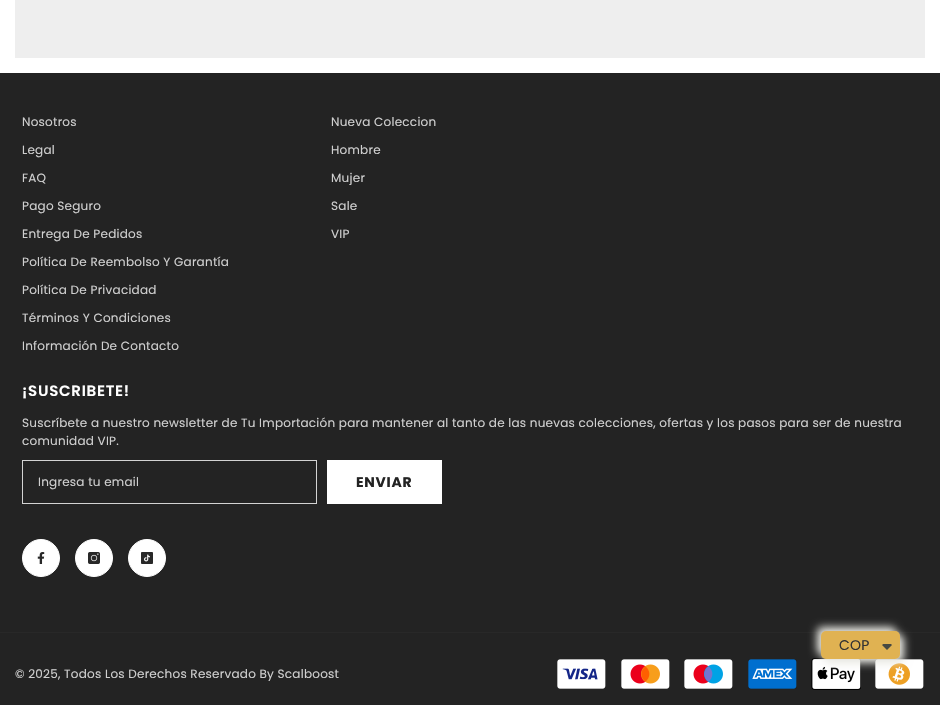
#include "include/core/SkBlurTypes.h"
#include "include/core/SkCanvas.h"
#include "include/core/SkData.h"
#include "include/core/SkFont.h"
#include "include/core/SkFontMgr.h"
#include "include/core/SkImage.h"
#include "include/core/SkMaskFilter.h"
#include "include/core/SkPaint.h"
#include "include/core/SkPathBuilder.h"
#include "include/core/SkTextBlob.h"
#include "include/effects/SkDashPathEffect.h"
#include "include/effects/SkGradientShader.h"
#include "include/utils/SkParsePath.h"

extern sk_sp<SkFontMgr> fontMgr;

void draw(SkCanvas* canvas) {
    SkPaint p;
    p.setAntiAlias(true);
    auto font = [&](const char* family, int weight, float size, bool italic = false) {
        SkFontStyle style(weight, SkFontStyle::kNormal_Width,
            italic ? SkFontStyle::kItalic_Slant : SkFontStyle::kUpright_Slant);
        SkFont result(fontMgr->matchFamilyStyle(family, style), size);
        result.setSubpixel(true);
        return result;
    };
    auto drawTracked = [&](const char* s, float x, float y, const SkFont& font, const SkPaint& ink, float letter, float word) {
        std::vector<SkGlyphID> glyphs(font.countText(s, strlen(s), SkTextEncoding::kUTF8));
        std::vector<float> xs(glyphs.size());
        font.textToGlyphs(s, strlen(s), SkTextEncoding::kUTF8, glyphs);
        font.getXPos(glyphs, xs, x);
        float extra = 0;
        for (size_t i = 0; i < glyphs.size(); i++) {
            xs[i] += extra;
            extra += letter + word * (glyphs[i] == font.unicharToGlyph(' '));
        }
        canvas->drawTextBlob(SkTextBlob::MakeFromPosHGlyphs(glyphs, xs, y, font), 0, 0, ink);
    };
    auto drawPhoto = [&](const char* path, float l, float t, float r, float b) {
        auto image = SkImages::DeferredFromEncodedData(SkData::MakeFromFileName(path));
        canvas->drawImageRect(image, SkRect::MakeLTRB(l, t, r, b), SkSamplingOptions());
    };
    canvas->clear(0xFFFFFFFF);
    p.setColor(0xFFEEEEEE);
    canvas->drawRect(SkRect::MakeLTRB(15, 0, 925, 58), p);
    p.setColor(0xFF232323);
    canvas->drawRect(SkRect::MakeLTRB(0, 73, 940, 632), p);
    auto font1 = font("Poppins", 400, 12);
    p.setColor(0xFFCFCFCF);
    {
        const struct { const char* s; float x, y; } items[] = {
            {"Nosotros", 22, 126},
            {"Legal", 22, 154},
            {"FAQ", 22, 182},
            {"Pago Seguro", 22, 210},
            {"Entrega De Pedidos", 22, 238},
            {"Política De Reembolso Y Garantía", 22, 266},
            {"Política De Privacidad", 22, 294},
            {"Términos Y Condiciones", 22, 322},
            {"Información De Contacto", 22, 350},
            {"Nueva Coleccion", 331, 126},
            {"Hombre", 331, 154},
            {"Mujer", 331, 182},
            {"Sale", 331, 210},
            {"VIP", 331, 238},
        };
        for (auto [s, x, y] : items) {
            drawTracked(s, x, y, font1, p, 0.24f, 0);
        }
    }
    auto font2 = font("Poppins", 600, 15);
    p.setColor(0xFFFFFFFF);
    drawTracked("¡SUSCRIBETE!", 22, 396, font2, p, 0.75f, 0);
    p.setColor(0xFFCFCFCF);
    drawTracked("Suscríbete a nuestro newsletter de Tu Importación para mantener al tanto de las nuevas colecciones, ofertas y los pasos para ser de nuestra", 22, 427, font1, p, 0.24f, 0);
    drawTracked("comunidad VIP.", 22, 445, font1, p, 0.24f, 0);
    p.setStyle(SkPaint::kStroke_Style);
    p.setStrokeWidth(1);
    p.setColor(0xFFD3D3D3);
    canvas->drawRect(SkRect::MakeLTRB(22.5f, 460.5f, 316.5f, 503.5f), p);
    p.setStyle(SkPaint::kFill_Style);
    p.setColor(0xFFCFCFCF);
    drawTracked("Ingresa tu email", 38, 486, font1, p, 0.24f, 0);
    p.setColor(0xFFFFFFFF);
    canvas->drawRect(SkRect::MakeLTRB(327, 460, 442, 504), p);
    auto font3 = font("Poppins", 700, 14);
    p.setColor(0xFF232323);
    drawTracked("ENVIAR", 356, 487, font3, p, 0.75f, 0);
    p.setColor(0xFFFFFFFF);
    canvas->drawCircle(41, 558, 18.5f, p);
    p.setStyle(SkPaint::kStroke_Style);
    canvas->drawCircle(41, 558, 18.5f, p);
    drawPhoto("media/1.png", 37, 552, 45, 564);
    p.setStyle(SkPaint::kFill_Style);
    canvas->drawCircle(94, 558, 18.5f, p);
    p.setStyle(SkPaint::kStroke_Style);
    canvas->drawCircle(94, 558, 18.5f, p);
    drawPhoto("media/2.png", 88, 552, 100, 564);
    p.setStyle(SkPaint::kFill_Style);
    canvas->drawCircle(147, 558, 18.5f, p);
    p.setStyle(SkPaint::kStroke_Style);
    canvas->drawCircle(147, 558, 18.5f, p);
    drawPhoto("media/3.png", 141, 552, 153, 564);
    p.setStyle(SkPaint::kFill_Style);
    p.setColor(0xFF232323);
    canvas->drawRect(SkRect::MakeLTRB(0, 633, 940, 705), p);
    p.setColor(0xFF282828);
    canvas->drawRect(SkRect::MakeLTRB(0, 632, 940, 633), p);
    p.setColor(0xFFCFCFCF);
    drawTracked("© 2025, Todos Los Derechos Reservado By Scalboost", 15, 678, font1, p, 0.24f, 0);
    drawPhoto("media/4.png", 557, 659, 606, 689);
    drawPhoto("media/5.png", 621, 659, 670, 689);
    drawPhoto("media/6.png", 684, 659, 733, 689);
    drawPhoto("media/7.png", 748, 659, 797, 689);
    drawPhoto("media/8.png", 811, 658, 861, 690);
    drawPhoto("media/9.png", 875, 659, 924, 689);
    p.setColor(0xFFE8E8E2);
    p.setMaskFilter(SkMaskFilter::MakeBlur(kNormal_SkBlurStyle, 4.5f));
    canvas->drawRoundRect(SkRect::MakeLTRB(817, 627, 896, 655), 5, 5, p);
    p.setMaskFilter(nullptr);
    p.setMaskFilter(SkMaskFilter::MakeBlur(kNormal_SkBlurStyle, 4.5f));
    canvas->drawRoundRect(SkRect::MakeLTRB(825, 635, 904, 663), 5, 5, p);
    p.setMaskFilter(nullptr);
    p.setColor(0xFFE0B252);
    canvas->drawRoundRect(SkRect::MakeLTRB(821, 631, 900, 659), 5, 5, p);
    auto font4 = font("Poppins", 400, 14);
    p.setColor(0xFF333333);
    drawTracked("COP", 839, 650, font4, p, 0.24f, 0);
    p.setColor(0xFF474942);
    canvas->drawPath(SkPathBuilder().moveTo(884, 644).cubicTo(883, 644, 882.5f, 644.5f, 882, 645).lineTo(887, 650).lineTo(892, 645).lineTo(891, 644).close().detach(), p);
}
